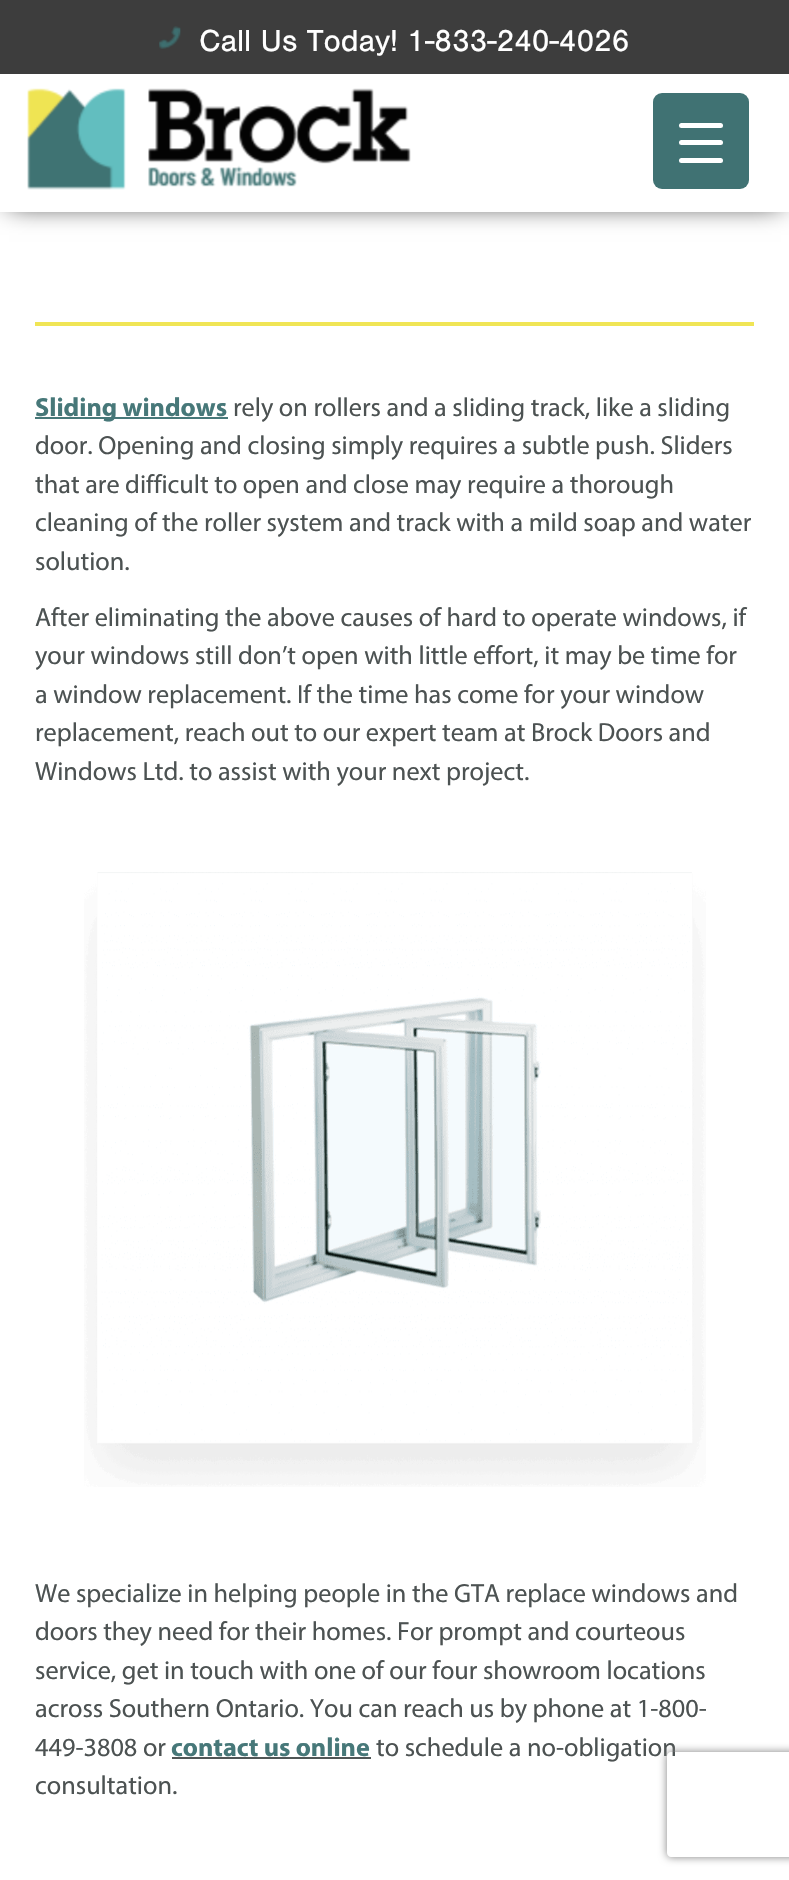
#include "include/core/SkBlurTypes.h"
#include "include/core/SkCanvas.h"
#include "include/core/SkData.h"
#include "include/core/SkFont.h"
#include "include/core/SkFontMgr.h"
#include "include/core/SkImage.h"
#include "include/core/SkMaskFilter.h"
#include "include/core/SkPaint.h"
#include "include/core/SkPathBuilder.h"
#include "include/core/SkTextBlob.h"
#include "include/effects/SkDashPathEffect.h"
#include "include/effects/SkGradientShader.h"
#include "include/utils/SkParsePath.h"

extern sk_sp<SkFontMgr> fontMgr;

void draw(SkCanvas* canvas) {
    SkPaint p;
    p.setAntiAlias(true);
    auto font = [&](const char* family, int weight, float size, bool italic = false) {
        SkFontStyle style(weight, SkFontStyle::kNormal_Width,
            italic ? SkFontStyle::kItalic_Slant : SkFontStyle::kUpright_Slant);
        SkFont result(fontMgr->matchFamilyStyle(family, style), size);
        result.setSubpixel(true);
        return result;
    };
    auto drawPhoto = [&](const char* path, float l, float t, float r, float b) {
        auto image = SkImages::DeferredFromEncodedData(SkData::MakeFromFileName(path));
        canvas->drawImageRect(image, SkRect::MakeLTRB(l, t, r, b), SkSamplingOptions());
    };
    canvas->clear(0xFFFFFFFF);
    p.setColor(0xFF030303);
    p.setMaskFilter(SkMaskFilter::MakeBlur(kNormal_SkBlurStyle, 13));
    canvas->drawRect(SkRect::MakeLTRB(9, 9, 781, 203), p);
    p.setMaskFilter(nullptr);
    p.setColor(0xFFFFFFFF);
    canvas->drawRect(SkRect::MakeLTRB(0, 74, 789, 212), p);
    p.setColor(0xFF3D3D3D);
    canvas->drawRect(SkRect::MakeLTRB(0, 0, 789, 74), p);
    drawPhoto("media/1.png", 159, 26, 181, 49);
    auto font1 = font("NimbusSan", 400, 31.5f);
    p.setColor(0xFFFFFFFF);
    canvas->drawString("Call Us Today! 1-833-240-4026", 199, 51, font1, p);
    drawPhoto("media/2.png", 27, 88, 411, 190);
    p.setColor(0xFF407273);
    canvas->drawRoundRect(SkRect::MakeLTRB(653, 93, 749, 189), 9, 9, p);
    p.setColor(0xFFFFFFFF);
    canvas->drawRoundRect(SkRect::MakeLTRB(679, 140, 723, 145), 2.5f, 2.5f, p);
    canvas->drawRoundRect(SkRect::MakeLTRB(679, 123, 723, 128), 2.5f, 2.5f, p);
    canvas->drawRoundRect(SkRect::MakeLTRB(679, 158, 723, 163), 2.5f, 2.5f, p);
    p.setColor(0xFFF0E555);
    canvas->drawRect(SkRect::MakeLTRB(35, 322, 754, 326), p);
    p.setColor(0xFF477879);
    canvas->drawRect(SkRect::MakeLTRB(35, 417, 228, 419), p);
    auto font2 = font("Myriad", 700, 26.25f);
    canvas->drawString("Sliding windows", 35, 416, font2, p);
    auto font3 = font("Myriad", 400, 26.25f);
    p.setColor(0xFF4C5252);
    {
        const struct { const char* s; float x, y; } items[] = {
            {"rely on rollers and a sliding track, like a sliding", 233, 416},
            {"door. Opening and closing simply requires a subtle push. Sliders", 35, 454},
            {"that are difficult to open and close may require a thorough", 35, 493},
            {"cleaning of the roller system and track with a mild soap and water", 35, 531},
            {"solution.", 35, 570},
            {"After eliminating the above causes of hard to operate windows, if", 35, 626},
            {"your windows still don’t open with little effort, it may be time for", 35, 664},
            {"a window replacement. If the time has come for your window", 35, 703},
            {"replacement, reach out to our expert team at Brock Doors and", 35, 741},
            {"Windows Ltd. to assist with your next project.", 35, 780},
        };
        for (auto [s, x, y] : items) {
            canvas->drawString(s, x, y, font3, p);
        }
    }
    drawPhoto("media/3.png", 84, 872, 706, 1487);
    {
        const struct { const char* s; float x, y; } items[] = {
            {"We specialize in helping people in the GTA replace windows and", 35, 1602},
            {"doors they need for their homes. For prompt and courteous", 35, 1640},
            {"service, get in touch with one of our four showroom locations", 35, 1679},
            {"across Southern Ontario. You can reach us by phone at 1-800-", 35, 1717},
            {"449-3808 or", 35, 1756},
        };
        for (auto [s, x, y] : items) {
            canvas->drawString(s, x, y, font3, p);
        }
    }
    p.setColor(0xFF477879);
    canvas->drawString("contact us online", 171, 1756, font2, p);
    p.setColor(0xFF4C5252);
    canvas->drawString("to schedule a no-obligation", 376, 1756, font3, p);
    p.setColor(0xFF505656);
    canvas->drawRect(SkRect::MakeLTRB(172, 1757, 371, 1759), p);
    p.setColor(0xFF4C5252);
    canvas->drawString("consultation.", 35, 1794, font3, p);
    canvas->save();
    canvas->clipPath(SkPathBuilder(SkPathFillType::kEvenOdd).moveTo(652, 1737).lineTo(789, 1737).lineTo(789, 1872).lineTo(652, 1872).close().moveTo(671, 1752).lineTo(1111, 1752).cubicTo(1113, 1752, 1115, 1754, 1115, 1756).lineTo(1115, 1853).cubicTo(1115, 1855, 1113, 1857, 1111, 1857).lineTo(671, 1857).cubicTo(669, 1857, 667, 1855, 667, 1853).lineTo(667, 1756).cubicTo(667, 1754, 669, 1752, 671, 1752).close().detach(), true);
    p.setColor(0xFF818181);
    p.setMaskFilter(SkMaskFilter::MakeBlur(kNormal_SkBlurStyle, 4.5f));
    canvas->drawRoundRect(SkRect::MakeLTRB(667, 1752, 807, 1857), 4, 4, p);
    p.setMaskFilter(nullptr);
    canvas->restore();
}
